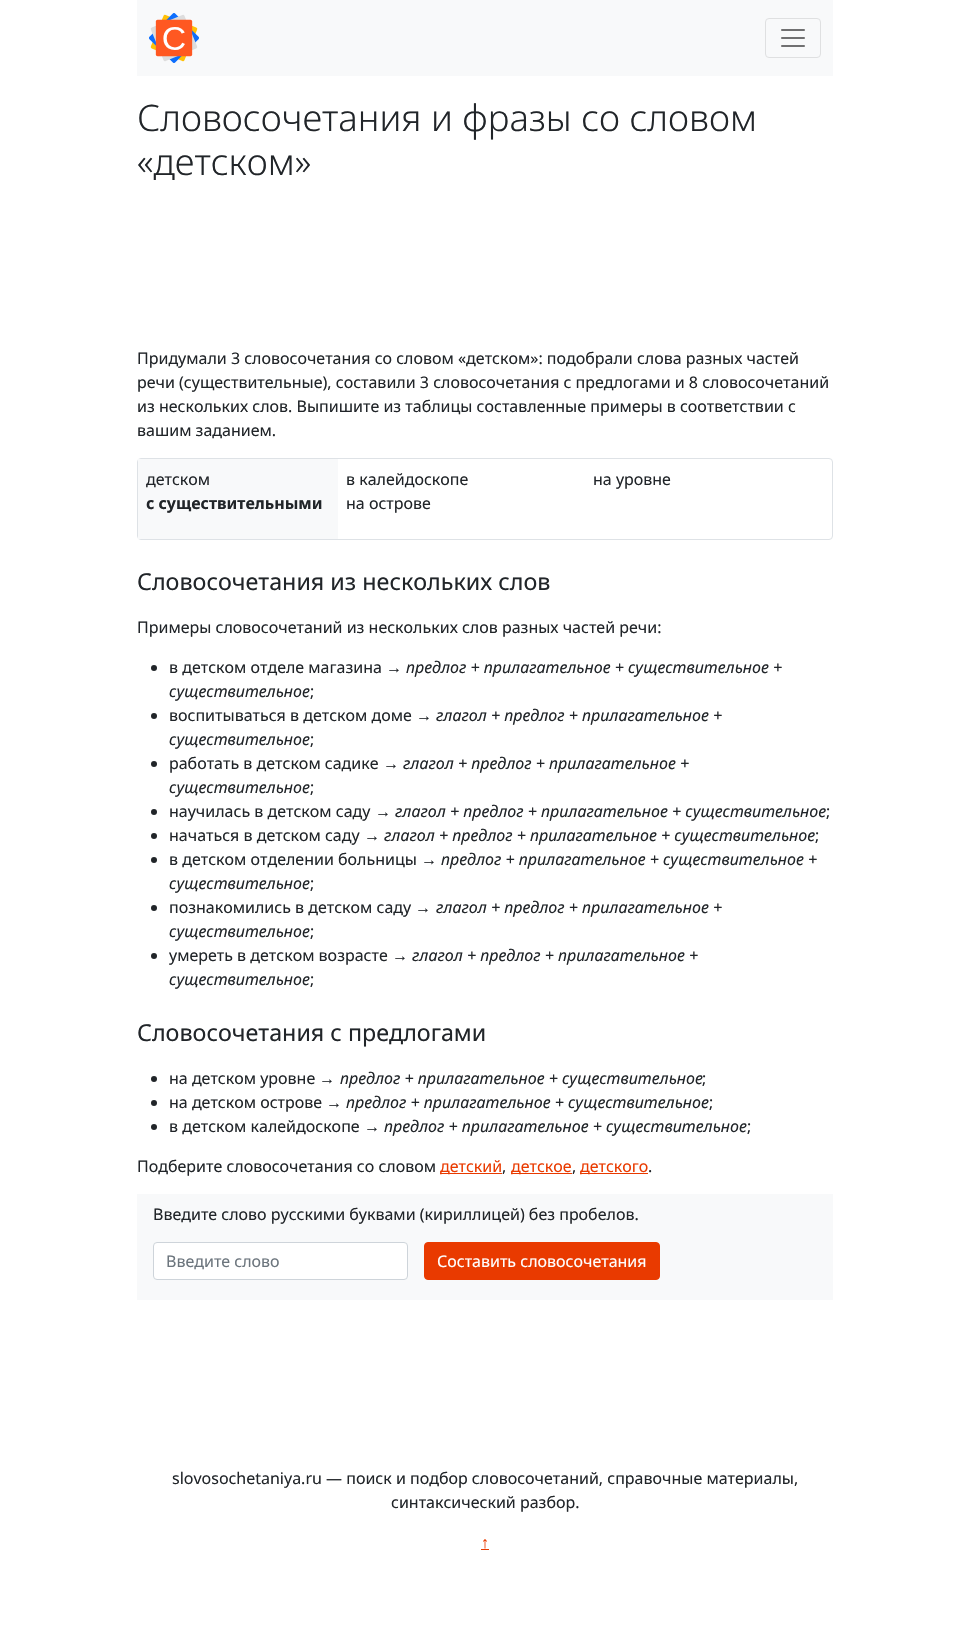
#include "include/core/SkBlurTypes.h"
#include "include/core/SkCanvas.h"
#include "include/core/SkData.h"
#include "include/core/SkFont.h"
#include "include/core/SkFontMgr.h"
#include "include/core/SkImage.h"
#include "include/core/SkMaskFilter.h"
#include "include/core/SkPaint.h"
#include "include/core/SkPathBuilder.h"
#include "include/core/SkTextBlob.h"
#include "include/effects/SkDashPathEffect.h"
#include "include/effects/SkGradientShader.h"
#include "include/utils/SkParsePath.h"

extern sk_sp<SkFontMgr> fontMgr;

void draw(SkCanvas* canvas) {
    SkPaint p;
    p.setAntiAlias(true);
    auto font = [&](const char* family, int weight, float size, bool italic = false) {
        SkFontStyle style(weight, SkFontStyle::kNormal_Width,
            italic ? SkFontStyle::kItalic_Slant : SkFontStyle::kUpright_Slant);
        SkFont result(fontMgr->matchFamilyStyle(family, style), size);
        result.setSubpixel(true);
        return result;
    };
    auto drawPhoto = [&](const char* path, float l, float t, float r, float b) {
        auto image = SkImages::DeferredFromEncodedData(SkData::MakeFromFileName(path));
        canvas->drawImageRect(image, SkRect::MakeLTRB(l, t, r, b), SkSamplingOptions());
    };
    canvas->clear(0xFFFFFFFF);
    p.setColor(0xFFF8F9FA);
    canvas->drawRect(SkRect::MakeLTRB(137, 0, 833, 76), p);
    drawPhoto("media/1.png", 149, 13, 199, 63);
    p.setStyle(SkPaint::kStroke_Style);
    p.setStrokeWidth(1);
    p.setColor(0xFFDFE0E1);
    canvas->drawRoundRect(SkRect::MakeLTRB(765.5f, 18.5f, 820.5f, 57.5f), 3.5f, 3.5f, p);
    drawPhoto("media/2.png", 781, 29, 805, 47);
    auto font1 = font("Noto Sans", 300, 36.5f);
    p.setStyle(SkPaint::kFill_Style);
    p.setColor(0xFF212529);
    canvas->drawString("Словосочетания и фразы со словом", 137, 131, font1, p);
    canvas->drawString("«детском»", 137, 175, font1, p);
    auto font2 = font("Noto Sans", 400, 16);
    {
        const struct { const char* s; float x, y; } items[] = {
            {"Придумали 3 словосочетания со словом «детском»: подобрали слова разных частей", 137, 364},
            {"речи (существительные), составили 3 словосочетания с предлогами и 8 словосочетаний", 137, 388},
            {"из нескольких слов. Выпишите из таблицы составленные примеры в соответствии с", 137, 412},
            {"вашим заданием.", 137, 436},
        };
        for (auto [s, x, y] : items) {
            canvas->drawString(s, x, y, font2, p);
        }
    }
    p.setStyle(SkPaint::kStroke_Style);
    p.setColor(0xFFDEE2E6);
    canvas->drawRoundRect(SkRect::MakeLTRB(137.5f, 458.5f, 832.5f, 539.5f), 3.5f, 3.5f, p);
    p.setStyle(SkPaint::kFill_Style);
    p.setColor(0xFFF8F9FA);
    canvas->drawRect(SkRect::MakeLTRB(138, 459, 338, 539), p);
    p.setColor(0xFF212529);
    canvas->drawString("детском", 146, 485, font2, p);
    auto font3 = font("Noto Sans", 700, 16);
    canvas->drawString("c существительными", 146, 509, font3, p);
    {
        const struct { const char* s; float x, y; } items[] = {
            {"в калейдоскопе", 346, 485},
            {"на уровне", 593, 485},
            {"на острове", 346, 509},
        };
        for (auto [s, x, y] : items) {
            canvas->drawString(s, x, y, font2, p);
        }
    }
    auto font4 = font("Noto Sans", 400, 23.3f);
    canvas->drawString("Словосочетания из нескольких слов", 137, 590, font4, p);
    canvas->drawString("Примеры словосочетаний из нескольких слов разных частей речи:", 137, 633, font2, p);
    canvas->drawCircle(154, 668, 3, p);
    canvas->drawString("в детском отделе магазина", 169, 673, font2, p);
    auto font5 = font("Liberation Sans", 400, 16, true);
    canvas->drawString("→", 386, 673, font5, p);
    auto font6 = font("Noto Sans", 400, 16, true);
    canvas->drawString("предлог + прилагательное + существительное +", 406, 673, font6, p);
    canvas->drawString("существительное", 169, 697, font6, p);
    canvas->drawString(";", 310, 697, font2, p);
    canvas->drawCircle(154, 716, 3, p);
    canvas->drawString("воспитываться в детском доме", 169, 721, font2, p);
    canvas->drawString("→", 416, 721, font5, p);
    canvas->drawString("глагол + предлог + прилагательное +", 436, 721, font6, p);
    canvas->drawString("существительное", 169, 745, font6, p);
    canvas->drawString(";", 310, 745, font2, p);
    canvas->drawCircle(154, 764, 3, p);
    canvas->drawString("работать в детском садике", 169, 769, font2, p);
    canvas->drawString("→", 383, 769, font5, p);
    canvas->drawString("глагол + предлог + прилагательное +", 403, 769, font6, p);
    canvas->drawString("существительное", 169, 793, font6, p);
    canvas->drawString(";", 310, 793, font2, p);
    canvas->drawCircle(154, 812, 3, p);
    canvas->drawString("научилась в детском саду", 169, 817, font2, p);
    canvas->drawString("→", 375, 817, font5, p);
    canvas->drawString("глагол + предлог + прилагательное + существительное", 395, 817, font6, p);
    canvas->drawString(";", 826, 817, font2, p);
    canvas->drawCircle(154, 836, 3, p);
    canvas->drawString("начаться в детском саду", 169, 841, font2, p);
    canvas->drawString("→", 364, 841, font5, p);
    canvas->drawString("глагол + предлог + прилагательное + существительное", 384, 841, font6, p);
    canvas->drawString(";", 815, 841, font2, p);
    canvas->drawCircle(154, 860, 3, p);
    canvas->drawString("в детском отделении больницы", 169, 865, font2, p);
    canvas->drawString("→", 421, 865, font5, p);
    canvas->drawString("предлог + прилагательное + существительное +", 441, 865, font6, p);
    canvas->drawString("существительное", 169, 889, font6, p);
    canvas->drawString(";", 310, 889, font2, p);
    canvas->drawCircle(154, 908, 3, p);
    canvas->drawString("познакомились в детском саду", 169, 913, font2, p);
    canvas->drawString("→", 415, 913, font5, p);
    canvas->drawString("глагол + предлог + прилагательное +", 436, 913, font6, p);
    canvas->drawString("существительное", 169, 937, font6, p);
    canvas->drawString(";", 310, 937, font2, p);
    canvas->drawCircle(154, 956, 3, p);
    canvas->drawString("умереть в детском возрасте", 169, 961, font2, p);
    canvas->drawString("→", 392, 961, font5, p);
    canvas->drawString("глагол + предлог + прилагательное +", 412, 961, font6, p);
    canvas->drawString("существительное", 169, 985, font6, p);
    canvas->drawString(";", 310, 985, font2, p);
    canvas->drawString("Словосочетания с предлогами", 137, 1041, font4, p);
    canvas->drawCircle(154, 1079, 3, p);
    canvas->drawString("на детском уровне", 169, 1084, font2, p);
    canvas->drawString("→", 319, 1084, font5, p);
    canvas->drawString("предлог + прилагательное + существительное", 340, 1084, font6, p);
    canvas->drawString(";", 702, 1084, font2, p);
    canvas->drawCircle(154, 1103, 3, p);
    canvas->drawString("на детском острове", 169, 1108, font2, p);
    canvas->drawString("→", 326, 1108, font5, p);
    canvas->drawString("предлог + прилагательное + существительное", 346, 1108, font6, p);
    canvas->drawString(";", 709, 1108, font2, p);
    canvas->drawCircle(154, 1127, 3, p);
    canvas->drawString("в детском калейдоскопе", 169, 1132, font2, p);
    canvas->drawString("→", 364, 1132, font5, p);
    canvas->drawString("предлог + прилагательное + существительное", 384, 1132, font6, p);
    canvas->drawString(";", 747, 1132, font2, p);
    canvas->drawString("Подберите словосочетания со словом", 137, 1172, font2, p);
    p.setColor(0xFFE93A00);
    canvas->drawRect(SkRect::MakeLTRB(440, 1173, 502, 1174), p);
    canvas->drawString("детский", 440, 1172, font2, p);
    p.setColor(0xFF212529);
    canvas->drawString(",", 502, 1172, font2, p);
    p.setColor(0xFFE93A00);
    canvas->drawRect(SkRect::MakeLTRB(511, 1173, 572, 1174), p);
    canvas->drawString("детское", 511, 1172, font2, p);
    p.setColor(0xFF212529);
    canvas->drawString(",", 572, 1172, font2, p);
    p.setColor(0xFFE93A00);
    canvas->drawRect(SkRect::MakeLTRB(580, 1173, 648, 1174), p);
    canvas->drawString("детского", 580, 1172, font2, p);
    p.setColor(0xFF212529);
    canvas->drawString(".", 648, 1172, font2, p);
    p.setColor(0xFFF8F9FA);
    canvas->drawRect(SkRect::MakeLTRB(137, 1194, 833, 1300), p);
    p.setColor(0xFF212529);
    canvas->drawString("Введите слово русскими буквами (кириллицей) без пробелов.", 153, 1220, font2, p);
    p.setColor(0xFFFFFFFF);
    canvas->drawRoundRect(SkRect::MakeLTRB(153.5f, 1242.5f, 407.5f, 1279.5f), 3.5f, 3.5f, p);
    p.setStyle(SkPaint::kStroke_Style);
    p.setColor(0xFFCED4DA);
    canvas->drawRoundRect(SkRect::MakeLTRB(153.5f, 1242.5f, 407.5f, 1279.5f), 3.5f, 3.5f, p);
    p.setStyle(SkPaint::kFill_Style);
    p.setColor(0xFF6C757D);
    canvas->drawString("Введите слово", 166, 1267, font2, p);
    p.setColor(0xFFE93A00);
    canvas->drawRoundRect(SkRect::MakeLTRB(424.5f, 1242.5f, 659.5f, 1279.5f), 3.5f, 3.5f, p);
    p.setStyle(SkPaint::kStroke_Style);
    canvas->drawRoundRect(SkRect::MakeLTRB(424.5f, 1242.5f, 659.5f, 1279.5f), 3.5f, 3.5f, p);
    p.setStyle(SkPaint::kFill_Style);
    p.setColor(0xFFFFFFFF);
    canvas->drawString("Составить словосочетания", 437, 1267, font2, p);
    p.setColor(0xFF212529);
    canvas->drawString("slovosochetaniya.ru — поиск и подбор словосочетаний, справочные материалы,", 172, 1484, font2, p);
    canvas->drawString("синтаксический разбор.", 391, 1508, font2, p);
    auto font7 = font("Liberation Sans", 400, 16);
    p.setColor(0xFFE93A00);
    canvas->drawString("↑", 481, 1548, font7, p);
    canvas->drawRect(SkRect::MakeLTRB(481, 1549, 489, 1550), p);
}
